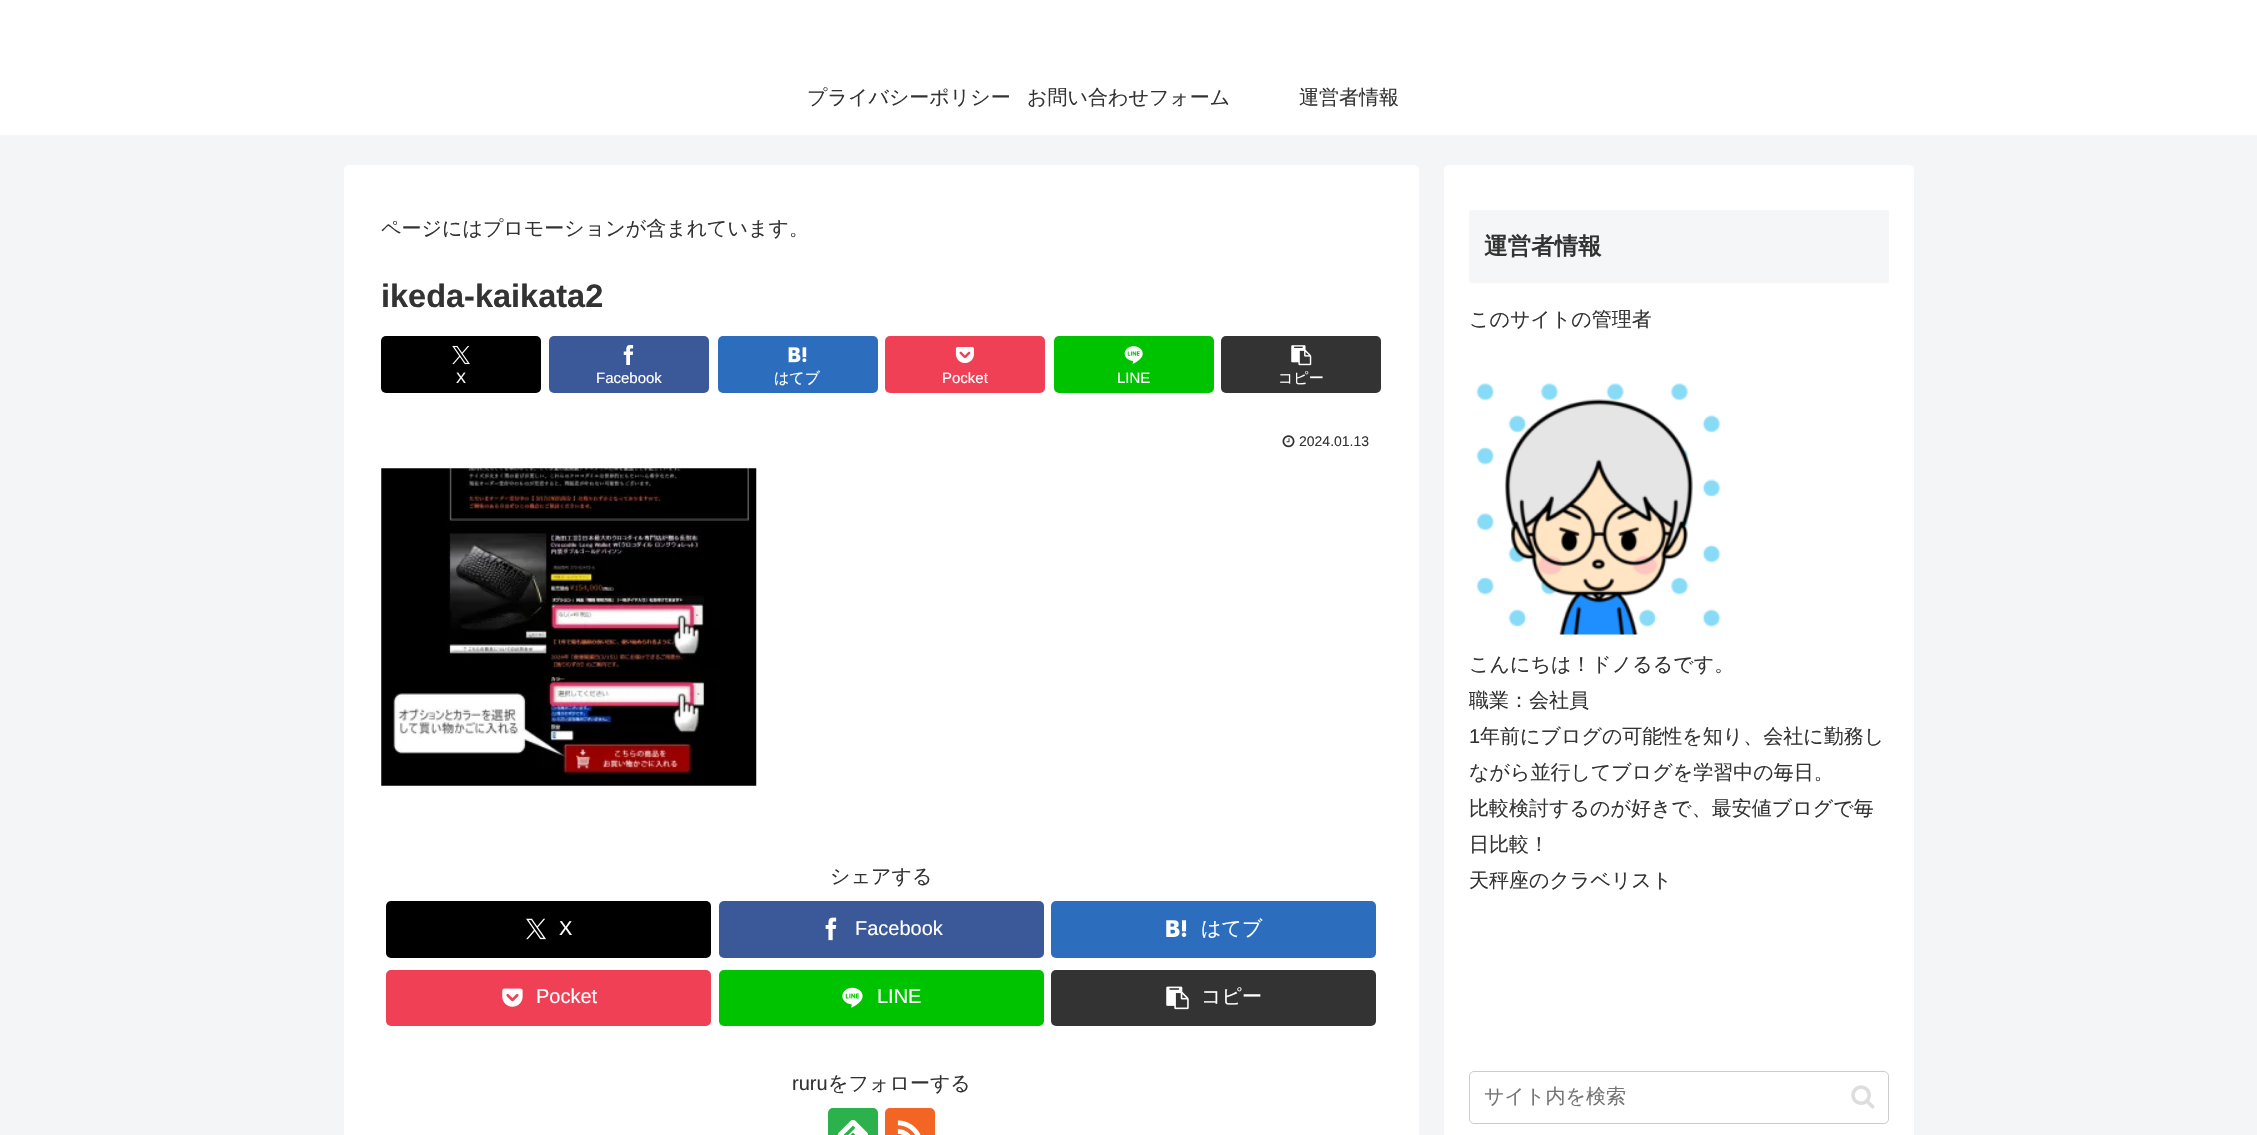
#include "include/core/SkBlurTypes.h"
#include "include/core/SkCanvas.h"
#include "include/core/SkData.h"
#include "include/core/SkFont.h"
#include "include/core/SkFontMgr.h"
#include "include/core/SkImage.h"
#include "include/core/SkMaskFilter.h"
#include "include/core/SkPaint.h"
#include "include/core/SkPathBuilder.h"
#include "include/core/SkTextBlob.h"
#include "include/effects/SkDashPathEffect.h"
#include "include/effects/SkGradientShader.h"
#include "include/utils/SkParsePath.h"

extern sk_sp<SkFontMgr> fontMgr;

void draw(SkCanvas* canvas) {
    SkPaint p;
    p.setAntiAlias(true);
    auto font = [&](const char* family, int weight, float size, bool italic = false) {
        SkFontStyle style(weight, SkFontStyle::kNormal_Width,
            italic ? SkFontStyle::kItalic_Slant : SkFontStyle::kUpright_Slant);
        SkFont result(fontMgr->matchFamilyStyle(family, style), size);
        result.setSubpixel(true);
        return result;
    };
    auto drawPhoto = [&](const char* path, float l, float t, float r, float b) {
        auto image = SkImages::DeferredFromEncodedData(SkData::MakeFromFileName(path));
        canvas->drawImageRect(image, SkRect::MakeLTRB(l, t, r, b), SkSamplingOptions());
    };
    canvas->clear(0xFFF4F5F7);
    p.setColor(0xFFFFFFFF);
    canvas->drawRect(SkRect::MakeLTRB(0, 0, 2257, 135), p);
    auto font1 = font("WenQuanYi Zen Hei", 500, 20);
    p.setColor(0xFF333333);
    {
        const struct { const char* s; float x, y; } items[] = {
            {"プライバシーポリシー", 807, 104},
            {"お問い合わせフォーム", 1027, 104},
            {"運営者情報", 1299, 104},
        };
        for (auto [s, x, y] : items) {
            canvas->drawString(s, x, y, font1, p);
        }
    }
    p.setColor(0xFFFFFFFF);
    canvas->drawRoundRect(SkRect::MakeLTRB(344, 165, 1419, 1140), 5, 5, p);
    p.setColor(0xFF333333);
    canvas->drawString("ページにはプロモーションが含まれています。", 381, 235, font1, p);
    auto font2 = font("Liberation Sans", 700, 32.5f);
    canvas->drawString("ikeda-kaikata2", 381, 307, font2, p);
    p.setColor(0xFF000000);
    canvas->drawRoundRect(SkRect::MakeLTRB(381, 336, 541, 393), 5, 5, p);
    drawPhoto("media/1.png", 452, 345, 470, 365);
    auto font3 = font("Liberation Sans", 400, 15);
    p.setColor(0xFFFFFFFF);
    canvas->drawString("X", 456, 383, font3, p);
    p.setColor(0xFF3B5998);
    canvas->drawRoundRect(SkRect::MakeLTRB(549, 336, 709, 393), 5, 5, p);
    drawPhoto("media/2.png", 623, 345, 634, 365);
    p.setColor(0xFFFFFFFF);
    canvas->drawString("Facebook", 596, 383, font3, p);
    p.setColor(0xFF2C6EBD);
    canvas->drawRoundRect(SkRect::MakeLTRB(718, 336, 878, 393), 5, 5, p);
    drawPhoto("media/3.png", 788, 347, 807, 363);
    auto font4 = font("WenQuanYi Zen Hei", 500, 15);
    p.setColor(0xFFFFFFFF);
    canvas->drawString("はてブ", 774, 383, font4, p);
    p.setColor(0xFFEF4056);
    canvas->drawRoundRect(SkRect::MakeLTRB(885, 336, 1045, 393), 5, 5, p);
    drawPhoto("media/4.png", 955, 347, 974, 364);
    p.setColor(0xFFFFFFFF);
    canvas->drawString("Pocket", 942, 383, font3, p);
    p.setColor(0xFF00C300);
    canvas->drawRoundRect(SkRect::MakeLTRB(1054, 336, 1214, 393), 5, 5, p);
    drawPhoto("media/5.png", 1124, 346, 1143, 364);
    p.setColor(0xFFFFFFFF);
    canvas->drawString("LINE", 1117, 383, font3, p);
    p.setColor(0xFF333333);
    canvas->drawRoundRect(SkRect::MakeLTRB(1221, 336, 1381, 393), 5, 5, p);
    drawPhoto("media/6.png", 1291, 345, 1312, 366);
    p.setColor(0xFFFFFFFF);
    canvas->drawString("コピー", 1278, 383, font4, p);
    drawPhoto("media/7.png", 1282, 435, 1295, 448);
    auto font5 = font("Liberation Sans", 400, 14);
    p.setColor(0xFF333333);
    canvas->drawString("2024.01.13", 1299, 446, font5, p);
    drawPhoto("media/8.png", 381, 468, 757, 786);
    canvas->drawString("シェアする", 830, 883, font1, p);
    p.setColor(0xFF000000);
    canvas->drawRoundRect(SkRect::MakeLTRB(386, 901, 711, 958), 5, 5, p);
    drawPhoto("media/9.png", 526, 918, 546, 940);
    auto font6 = font("Liberation Sans", 400, 20);
    p.setColor(0xFFFFFFFF);
    canvas->drawString("X", 559, 935, font6, p);
    p.setColor(0xFF3B5998);
    canvas->drawRoundRect(SkRect::MakeLTRB(719, 901, 1044, 958), 5, 5, p);
    drawPhoto("media/10.png", 825, 917, 837, 941);
    p.setColor(0xFFFFFFFF);
    canvas->drawString("Facebook", 855, 935, font6, p);
    p.setColor(0xFF2C6EBD);
    canvas->drawRoundRect(SkRect::MakeLTRB(1051, 901, 1376, 958), 5, 5, p);
    drawPhoto("media/11.png", 1166, 920, 1187, 937);
    p.setColor(0xFFFFFFFF);
    canvas->drawString("はてブ", 1201, 935, font1, p);
    p.setColor(0xFFEF4056);
    canvas->drawRoundRect(SkRect::MakeLTRB(386, 970, 711, 1026), 5, 5, p);
    drawPhoto("media/12.png", 502, 988, 523, 1007);
    p.setColor(0xFFFFFFFF);
    canvas->drawString("Pocket", 536, 1003, font6, p);
    p.setColor(0xFF00C300);
    canvas->drawRoundRect(SkRect::MakeLTRB(719, 970, 1044, 1026), 5, 5, p);
    drawPhoto("media/13.png", 842, 987, 863, 1008);
    p.setColor(0xFFFFFFFF);
    canvas->drawString("LINE", 877, 1003, font6, p);
    p.setColor(0xFF333333);
    canvas->drawRoundRect(SkRect::MakeLTRB(1051, 970, 1376, 1026), 5, 5, p);
    drawPhoto("media/14.png", 1166, 986, 1189, 1010);
    p.setColor(0xFFFFFFFF);
    canvas->drawString("コピー", 1201, 1003, font1, p);
    p.setColor(0xFF333333);
    canvas->drawString("ruru", 792, 1090, font6, p);
    canvas->drawString("をフォローする", 828, 1090, font1, p);
    p.setColor(0xFF2BB24C);
    canvas->drawRoundRect(SkRect::MakeLTRB(828, 1108, 878, 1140), 5, 5, p);
    drawPhoto("media/15.png", 838, 1119, 868, 1135);
    p.setColor(0xFFF26522);
    canvas->drawRoundRect(SkRect::MakeLTRB(885, 1108, 935, 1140), 5, 5, p);
    drawPhoto("media/16.png", 897, 1120, 921, 1135);
    p.setColor(0xFFFFFFFF);
    canvas->drawRoundRect(SkRect::MakeLTRB(1444, 165, 1914, 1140), 5, 5, p);
    p.setColor(0xFFF5F6F7);
    canvas->drawRoundRect(SkRect::MakeLTRB(1469, 210, 1889, 283), 2.5f, 2.5f, p);
    auto font7 = font("WenQuanYi Zen Hei", 700, 23.5f);
    p.setColor(0xFF333333);
    canvas->drawString("運営者情報", 1484, 254, font7, p);
    canvas->drawString("このサイトの管理者", 1469, 326, font1, p);
    drawPhoto("media/17.png", 1476, 383, 1721, 635);
    canvas->drawString("こんにちは！ドノるるです。", 1469, 671, font1, p);
    canvas->drawString("職業：会社員", 1469, 707, font1, p);
    canvas->drawString("1", 1469, 743, font6, p);
    {
        const struct { const char* s; float x, y; } items[] = {
            {"年前にブログの可能性を知り、会社に勤務し", 1480, 743},
            {"ながら並行してブログを学習中の毎日。", 1469, 779},
            {"比較検討するのが好きで、最安値ブログで毎", 1469, 815},
            {"日比較！", 1469, 851},
            {"天秤座のクラベリスト", 1469, 887},
        };
        for (auto [s, x, y] : items) {
            canvas->drawString(s, x, y, font1, p);
        }
    }
    p.setStyle(SkPaint::kStroke_Style);
    p.setStrokeWidth(1);
    p.setColor(0xFFCCCCCC);
    canvas->drawRoundRect(SkRect::MakeLTRB(1469.5f, 1071.5f, 1888.5f, 1123.5f), 4.5f, 4.5f, p);
    p.setStyle(SkPaint::kFill_Style);
    p.setColor(0xFF757575);
    canvas->drawString("サイト内を検索", 1484, 1103, font1, p);
    drawPhoto("media/18.png", 1851, 1085, 1875, 1109);
}
